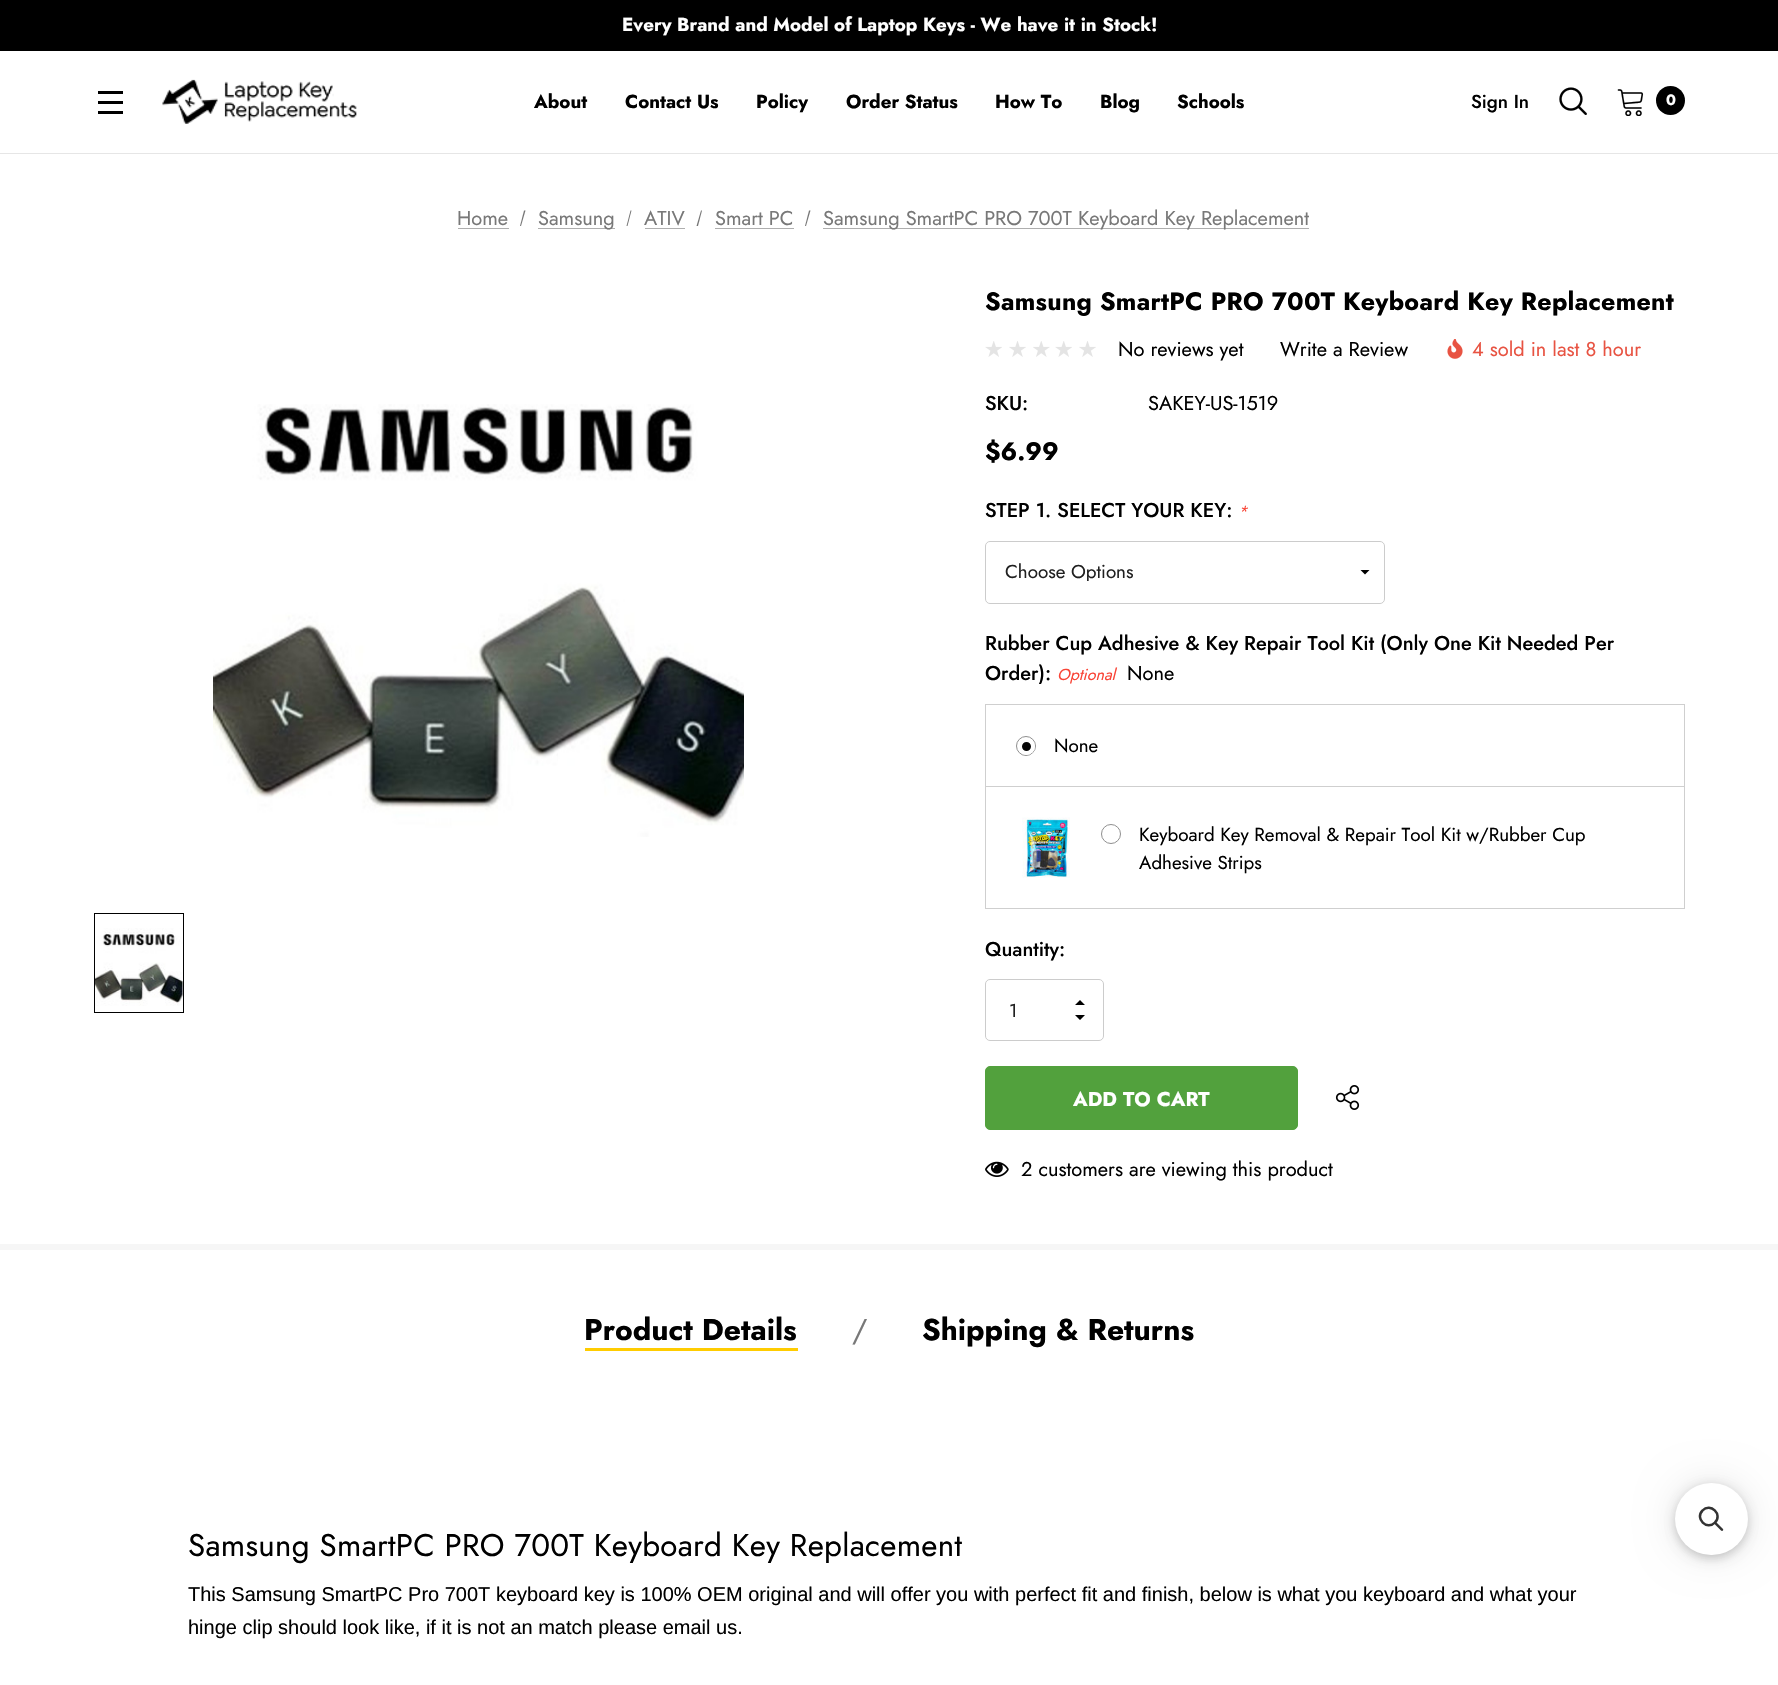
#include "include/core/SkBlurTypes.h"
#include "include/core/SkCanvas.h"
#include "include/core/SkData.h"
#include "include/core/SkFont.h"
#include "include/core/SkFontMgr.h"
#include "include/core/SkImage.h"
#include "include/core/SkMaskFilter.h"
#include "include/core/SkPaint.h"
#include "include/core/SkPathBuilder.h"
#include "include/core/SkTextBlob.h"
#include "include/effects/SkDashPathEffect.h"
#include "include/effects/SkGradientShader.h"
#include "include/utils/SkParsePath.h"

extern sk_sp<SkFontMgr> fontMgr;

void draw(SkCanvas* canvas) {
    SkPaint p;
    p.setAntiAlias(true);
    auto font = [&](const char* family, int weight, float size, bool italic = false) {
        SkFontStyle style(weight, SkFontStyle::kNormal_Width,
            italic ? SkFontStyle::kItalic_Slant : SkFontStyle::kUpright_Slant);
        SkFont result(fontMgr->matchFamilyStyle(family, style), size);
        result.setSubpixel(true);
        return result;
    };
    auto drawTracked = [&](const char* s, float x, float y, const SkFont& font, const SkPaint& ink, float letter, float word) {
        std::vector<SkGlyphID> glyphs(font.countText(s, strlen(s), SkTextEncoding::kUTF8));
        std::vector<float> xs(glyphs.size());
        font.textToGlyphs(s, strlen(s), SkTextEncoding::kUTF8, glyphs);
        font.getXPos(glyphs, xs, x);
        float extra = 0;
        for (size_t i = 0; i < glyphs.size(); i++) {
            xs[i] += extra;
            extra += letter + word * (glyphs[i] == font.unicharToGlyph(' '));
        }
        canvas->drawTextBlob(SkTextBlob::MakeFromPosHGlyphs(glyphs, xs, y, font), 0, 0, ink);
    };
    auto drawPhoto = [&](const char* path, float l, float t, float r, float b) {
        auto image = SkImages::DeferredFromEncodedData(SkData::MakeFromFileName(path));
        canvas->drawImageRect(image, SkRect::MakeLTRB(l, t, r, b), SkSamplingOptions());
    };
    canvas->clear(0xFFFFFFFF);
    p.setColor(0xFF000000);
    canvas->drawRect(SkRect::MakeLTRB(0, 0, 1778, 51), p);
    auto font1 = font("Jost", 700, 18.75f);
    p.setColor(0xFFFFFFFF);
    canvas->drawString("Every Brand and Model of Laptop Keys - We have it in Stock!", 622, 31, font1, p);
    {
        const struct { float l, t, r, b; SkColor color; } items[] = {
            {0, 153, 1778, 154, 0xFFE6E6E6},
            {98, 101, 123, 104, 0xFF000000},
            {98, 91, 123, 94, 0xFF000000},
            {98, 111, 123, 114, 0xFF000000},
        };
        for (auto [l, t, r, b, color] : items) {
            p.setColor(color);
            canvas->drawRect(SkRect::MakeLTRB(l, t, r, b), p);
        }
    }
    drawPhoto("media/1.png", 162, 79, 357, 124);
    {
        const struct { const char* s; float x, y; } items[] = {
            {"About", 534, 108},
            {"Contact Us", 625, 108},
            {"Policy", 756, 108},
            {"Order Status", 846, 108},
            {"How To", 995, 108},
            {"Blog", 1100, 108},
            {"Schools", 1177, 108},
        };
        for (auto [s, x, y] : items) {
            canvas->drawString(s, x, y, font1, p);
        }
    }
    auto font2 = font("Jost", 500, 18.75f);
    canvas->drawString("Sign In", 1471, 108, font2, p);
    drawPhoto("media/2.png", 1559, 87, 1587, 115);
    drawPhoto("media/3.png", 1617, 89, 1644, 116);
    canvas->drawCircle(1670.5f, 100.5f, 14.5f, p);
    auto font3 = font("Jost", 700, 15);
    p.setColor(0xFFFFFFFF);
    canvas->drawString("0", 1666, 105, font3, p);
    p.setColor(0xFFAEAEAE);
    canvas->drawRect(SkRect::MakeLTRB(458, 228, 509, 229), p);
    auto font4 = font("Jost", 400, 20);
    p.setColor(0xFF787878);
    canvas->drawString("Home", 457, 225, font4, p);
    p.setColor(0xFF757575);
    canvas->drawPath(SkPathBuilder().moveTo(524, 210.5f).lineTo(525.5f, 210.5f).lineTo(521, 226).lineTo(520, 226).close().detach(), p);
    p.setColor(0xFFAEAEAE);
    canvas->drawRect(SkRect::MakeLTRB(538, 228, 615, 229), p);
    p.setColor(0xFF787878);
    canvas->drawString("Samsung", 538, 225, font4, p);
    p.setColor(0xFF757575);
    canvas->drawPath(SkPathBuilder().moveTo(630.5f, 210.5f).lineTo(631.5f, 210.5f).lineTo(627.5f, 226).lineTo(626.5f, 226).close().detach(), p);
    p.setColor(0xFFAEAEAE);
    canvas->drawRect(SkRect::MakeLTRB(645, 228, 685, 229), p);
    p.setColor(0xFF787878);
    canvas->drawString("ATIV", 644, 225, font4, p);
    p.setColor(0xFF757575);
    canvas->drawPath(SkPathBuilder().moveTo(701, 210.5f).lineTo(702, 210.5f).lineTo(698, 226).lineTo(696.5f, 226).close().detach(), p);
    p.setColor(0xFFAEAEAE);
    canvas->drawRect(SkRect::MakeLTRB(715, 228, 794, 229), p);
    p.setColor(0xFF787878);
    canvas->drawString("Smart PC", 715, 225, font4, p);
    p.setColor(0xFF757575);
    canvas->drawPath(SkPathBuilder().moveTo(809, 210.5f).lineTo(810.5f, 210.5f).lineTo(806, 226).lineTo(805, 226).close().detach(), p);
    p.setColor(0xFFAEAEAE);
    canvas->drawRect(SkRect::MakeLTRB(823, 228, 1309, 229), p);
    p.setColor(0xFF787878);
    canvas->drawString("Samsung SmartPC PRO 700T Keyboard Key Replacement", 823, 225, font4, p);
    drawPhoto("media/4.png", 213, 404, 744, 837);
    p.setStyle(SkPaint::kStroke_Style);
    p.setStrokeWidth(1);
    p.setColor(0xFF000000);
    canvas->drawRect(SkRect::MakeLTRB(94.5f, 913.5f, 183.5f, 1012.5f), p);
    drawPhoto("media/5.png", 95, 928, 183, 1006);
    auto font5 = font("Jost", 700, 25);
    p.setStyle(SkPaint::kFill_Style);
    drawTracked("Samsung SmartPC PRO 700T Keyboard Key Replacement", 985, 310, font5, p, 0.3f, 0);
    drawPhoto("media/6.png", 985, 341, 1002, 357);
    drawPhoto("media/7.png", 1009, 341, 1026, 357);
    drawPhoto("media/8.png", 1033, 341, 1050, 357);
    drawPhoto("media/6.png", 1055, 341, 1072, 357);
    drawPhoto("media/7.png", 1079, 341, 1096, 357);
    canvas->drawString("No reviews yet", 1118, 356, font4, p);
    canvas->drawString("Write a Review", 1280, 356, font4, p);
    drawPhoto("media/9.png", 1447, 339, 1463, 359);
    p.setColor(0xFFE85342);
    canvas->drawString("4 sold in last 8 hour", 1472, 356, font4, p);
    auto font6 = font("Jost", 500, 20);
    p.setColor(0xFF000000);
    canvas->drawString("SKU:", 985, 410, font6, p);
    canvas->drawString("SAKEY-US-1519", 1148, 410, font4, p);
    canvas->drawString("$6.99", 985, 460, font5, p);
    canvas->drawString("STEP 1. SELECT YOUR KEY:", 985, 517, font6, p);
    auto font7 = font("Jost", 400, 16, true);
    p.setColor(0xFFF94436);
    canvas->drawString("*", 1238, 517, font7, p);
    p.setColor(0xFF000000);
    canvas->drawPath(SkPathBuilder().moveTo(1369.5f, 570).lineTo(1365, 574.5f).lineTo(1360.5f, 570).close().detach(), p);
    p.setStyle(SkPaint::kStroke_Style);
    p.setColor(0xFFCCCCCC);
    canvas->drawRoundRect(SkRect::MakeLTRB(985.5f, 541.5f, 1384.5f, 603.5f), 4.5f, 4.5f, p);
    canvas->save();
    canvas->clipRect(SkRect::MakeLTRB(1005, 563, 1346, 581));
    auto font8 = font("Jost", 400, 18.75f);
    p.setStyle(SkPaint::kFill_Style);
    p.setColor(0xFF202020);
    canvas->drawString("Choose Options", 1005, 578, font8, p);
    canvas->restore();
    p.setColor(0xFF000000);
    canvas->drawString("Rubber Cup Adhesive & Key Repair Tool Kit (Only One Kit Needed Per", 985, 650, font6, p);
    canvas->drawString("Order):", 985, 680, font6, p);
    p.setColor(0xFFF94436);
    canvas->drawString("Optional", 1057, 680, font7, p);
    p.setColor(0xFF000000);
    canvas->drawString("None", 1127, 680, font4, p);
    p.setStyle(SkPaint::kStroke_Style);
    p.setColor(0xFFCFCFCF);
    canvas->drawRect(SkRect::MakeLTRB(985.5f, 704.5f, 1684.5f, 908.5f), p);
    p.setColor(0xFF8F8F8F);
    canvas->drawCircle(1026, 746, 9.5f, p);
    p.setStyle(SkPaint::kFill_Style);
    p.setColor(0xFF060606);
    canvas->drawCircle(1026.5f, 746.5f, 6.5f, p);
    p.setStyle(SkPaint::kStroke_Style);
    p.setStrokeWidth(4);
    p.setColor(0xFFFFFFFF);
    canvas->drawCircle(1026.5f, 746.5f, 6.5f, p);
    p.setStyle(SkPaint::kFill_Style);
    p.setColor(0xFF000000);
    canvas->drawString("None", 1054, 752, font8, p);
    p.setColor(0xFFCFCFCF);
    canvas->drawRect(SkRect::MakeLTRB(986, 786, 1684, 787), p);
    drawPhoto("media/10.png", 1022, 817, 1070, 878);
    p.setStyle(SkPaint::kStroke_Style);
    p.setStrokeWidth(1);
    p.setColor(0xFF8F8F8F);
    canvas->drawCircle(1111, 834, 9.5f, p);
    p.setStyle(SkPaint::kFill_Style);
    p.setColor(0xFF000000);
    canvas->drawString("Keyboard Key Removal & Repair Tool Kit w/Rubber Cup", 1139, 841, font8, p);
    canvas->drawString("Adhesive Strips", 1139, 869, font8, p);
    canvas->drawString("Quantity:", 985, 956, font6, p);
    p.setStyle(SkPaint::kStroke_Style);
    p.setColor(0xFFCCCCCC);
    canvas->drawRoundRect(SkRect::MakeLTRB(985.5f, 979.5f, 1103.5f, 1040.5f), 4.5f, 4.5f, p);
    p.setStyle(SkPaint::kFill_Style);
    p.setColor(0xFF202020);
    canvas->drawString("1", 1009, 1017, font8, p);
    p.setColor(0xFF000000);
    canvas->drawPath(SkPathBuilder().moveTo(1075, 1015).lineTo(1085, 1015).lineTo(1080, 1020).close().moveTo(1085, 1005).lineTo(1075, 1005).lineTo(1080, 1000).close().detach(), p);
    p.setColor(0xFF52A13D);
    canvas->drawRoundRect(SkRect::MakeLTRB(985.5f, 1066.5f, 1297.5f, 1129.5f), 4.5f, 4.5f, p);
    p.setStyle(SkPaint::kStroke_Style);
    canvas->drawRoundRect(SkRect::MakeLTRB(985.5f, 1066.5f, 1297.5f, 1129.5f), 4.5f, 4.5f, p);
    auto font9 = font("Jost", 700, 20);
    p.setStyle(SkPaint::kFill_Style);
    p.setColor(0xFFFFFFFF);
    canvas->drawString("ADD TO CART", 1073, 1106, font9, p);
    drawPhoto("media/11.png", 1335, 1085, 1360, 1110);
    drawPhoto("media/12.png", 985, 1161, 1009, 1177);
    p.setColor(0xFF000000);
    canvas->drawString("2 customers are viewing this product", 1021, 1176, font4, p);
    p.setColor(0xFFF6F6F6);
    canvas->drawRect(SkRect::MakeLTRB(0, 1244, 1778, 1250), p);
    auto font10 = font("Jost", 700, 30);
    p.setColor(0xFF000000);
    canvas->drawString("Product Details", 584, 1340, font10, p);
    p.setColor(0xFFFFCC00);
    canvas->drawRect(SkRect::MakeLTRB(585, 1348, 798, 1351), p);
    auto font11 = font("Jost", 400, 30);
    p.setColor(0xFF787878);
    canvas->drawString("/", 852, 1340, font11, p);
    p.setColor(0xFF000000);
    canvas->drawString("Shipping & Returns", 922, 1340, font10, p);
    auto font12 = font("Jost", 400, 31.25f);
    drawTracked("Samsung SmartPC PRO 700T Keyboard Key Replacement", 188, 1556, font12, p, 0.3f, 0);
    auto font13 = font("Liberation Sans", 400, 20);
    canvas->drawString("This Samsung SmartPC Pro 700T keyboard key is 100% OEM original and will offer you with perfect fit and finish, below is what you keyboard and what your", 188, 1601, font13, p);
    canvas->drawString("hinge clip should look like, if it is not an match please email us.", 188, 1634, font13, p);
    p.setColor(0x0D000000);
    p.setMaskFilter(SkMaskFilter::MakeBlur(kNormal_SkBlurStyle, 5));
    canvas->drawRoundRect(SkRect::MakeLTRB(1675, 1488, 1748, 1560), 36, 36, p);
    p.setMaskFilter(nullptr);
    p.setColor(0x26000000);
    p.setMaskFilter(SkMaskFilter::MakeBlur(kNormal_SkBlurStyle, 5));
    canvas->drawRoundRect(SkRect::MakeLTRB(1675, 1485, 1748, 1558), 36.5f, 36.5f, p);
    p.setMaskFilter(nullptr);
    p.setColor(0x1A000000);
    p.setMaskFilter(SkMaskFilter::MakeBlur(kNormal_SkBlurStyle, 19));
    canvas->drawRoundRect(SkRect::MakeLTRB(1675, 1483, 1748, 1555), 36, 36, p);
    p.setMaskFilter(nullptr);
    p.setColor(0xFFFFFFFF);
    canvas->drawRoundRect(SkRect::MakeLTRB(1675, 1483, 1748, 1555), 36, 36, p);
    p.setStyle(SkPaint::kStroke_Style);
    p.setStrokeWidth(2.5f);
    p.setColor(0xFF333333);
    canvas->drawPath(SkPathBuilder().moveTo(1702.5f, 1510.5f).cubicTo(1710.5f, 1502, 1723, 1514.5f, 1715, 1522.5f).cubicTo(1707, 1531, 1694.5f, 1518.5f, 1702.5f, 1510.5f).close().detach(), p);
    p.setStyle(SkPaint::kFill_Style);
    canvas->drawPath(SkPathBuilder().moveTo(1714, 1523.5f).lineTo(1716, 1522).lineTo(1723, 1529).cubicTo(1724, 1530.5f, 1722, 1531.5f, 1721, 1530.5f).close().detach(), p);
}
